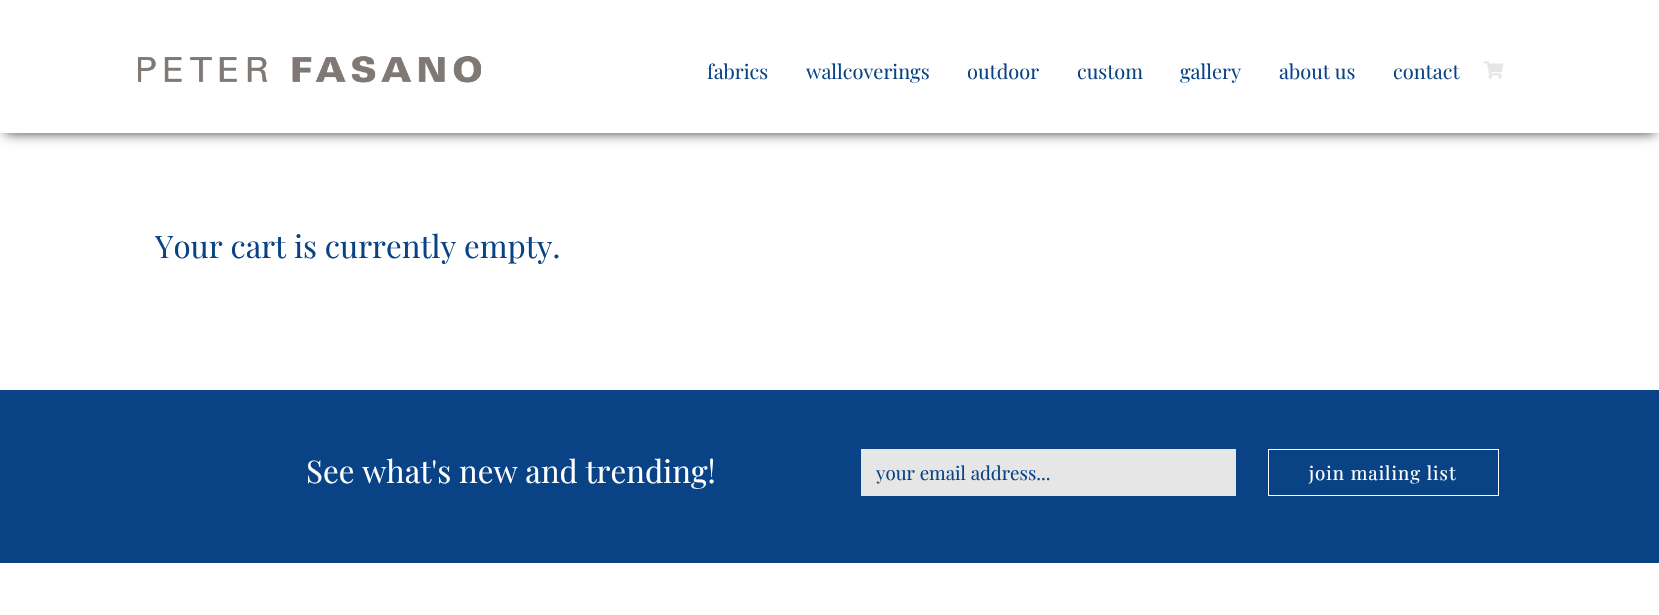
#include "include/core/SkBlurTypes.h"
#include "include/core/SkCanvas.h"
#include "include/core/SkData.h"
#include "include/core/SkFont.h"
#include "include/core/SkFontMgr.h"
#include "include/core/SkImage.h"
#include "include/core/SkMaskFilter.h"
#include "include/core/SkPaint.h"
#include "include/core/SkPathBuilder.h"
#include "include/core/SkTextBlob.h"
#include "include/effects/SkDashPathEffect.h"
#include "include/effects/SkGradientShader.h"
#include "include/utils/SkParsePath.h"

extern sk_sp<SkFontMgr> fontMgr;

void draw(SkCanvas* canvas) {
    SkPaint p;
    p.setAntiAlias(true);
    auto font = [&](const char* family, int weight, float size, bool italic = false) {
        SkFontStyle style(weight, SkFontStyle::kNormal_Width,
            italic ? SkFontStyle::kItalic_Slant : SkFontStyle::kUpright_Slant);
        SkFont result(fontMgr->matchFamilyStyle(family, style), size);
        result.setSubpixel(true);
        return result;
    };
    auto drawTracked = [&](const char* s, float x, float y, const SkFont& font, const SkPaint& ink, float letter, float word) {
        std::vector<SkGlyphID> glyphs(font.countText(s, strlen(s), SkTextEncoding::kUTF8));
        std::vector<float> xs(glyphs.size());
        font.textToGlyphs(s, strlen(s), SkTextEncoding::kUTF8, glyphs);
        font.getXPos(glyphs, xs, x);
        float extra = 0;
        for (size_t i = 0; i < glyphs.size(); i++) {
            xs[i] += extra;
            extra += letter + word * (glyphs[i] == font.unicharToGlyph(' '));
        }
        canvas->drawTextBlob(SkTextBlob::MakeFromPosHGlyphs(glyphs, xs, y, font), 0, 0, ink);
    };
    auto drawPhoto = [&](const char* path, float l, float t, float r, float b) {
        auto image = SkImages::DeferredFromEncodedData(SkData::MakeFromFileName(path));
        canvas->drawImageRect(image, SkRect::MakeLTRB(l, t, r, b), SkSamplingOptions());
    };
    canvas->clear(0xFFFFFFFF);
    p.setColor(0xFF383838);
    p.setMaskFilter(SkMaskFilter::MakeBlur(kNormal_SkBlurStyle, 6));
    canvas->drawRect(SkRect::MakeLTRB(5, 10, 1655, 133), p);
    p.setMaskFilter(nullptr);
    p.setColor(0xFFFFFFFF);
    canvas->drawRect(SkRect::MakeLTRB(0, 0, 1659, 133), p);
    drawPhoto("media/1.png", 138, 56, 481, 83);
    auto font1 = font("Playfair Display", 400, 20);
    p.setColor(0xFF094386);
    {
        const struct { const char* s; float x, y; } items[] = {
            {"fabrics", 707, 79},
            {"wallcoverings", 806, 79},
            {"outdoor", 967, 79},
            {"custom", 1077, 79},
            {"gallery", 1180, 79},
            {"about us", 1279, 79},
            {"contact", 1393, 79},
        };
        for (auto [s, x, y] : items) {
            canvas->drawString(s, x, y, font1, p);
        }
    }
    drawPhoto("media/2.png", 1483, 61, 1504, 79);
    auto font2 = font("Playfair Display", 400, 31.25f);
    canvas->drawString("Your cart is currently empty.", 155, 258, font2, p);
    canvas->drawRect(SkRect::MakeLTRB(0, 390, 1659, 563), p);
    p.setColor(0xFFFFFFFF);
    canvas->drawString("See what's new and trending!", 306, 483, font2, p);
    p.setColor(0xFFE6E6E6);
    canvas->drawRect(SkRect::MakeLTRB(861, 449, 1236, 496), p);
    auto font3 = font("Playfair Display", 400, 18.75f);
    p.setColor(0xFF094386);
    canvas->drawString("your email address...", 876, 480, font3, p);
    p.setStyle(SkPaint::kStroke_Style);
    p.setStrokeWidth(1);
    p.setColor(0xFFFFFFFF);
    canvas->drawRect(SkRect::MakeLTRB(1268.5f, 449.5f, 1498.5f, 495.5f), p);
    p.setStyle(SkPaint::kFill_Style);
    drawTracked("join mailing list", 1309, 480, font3, p, 1, 0);
}
